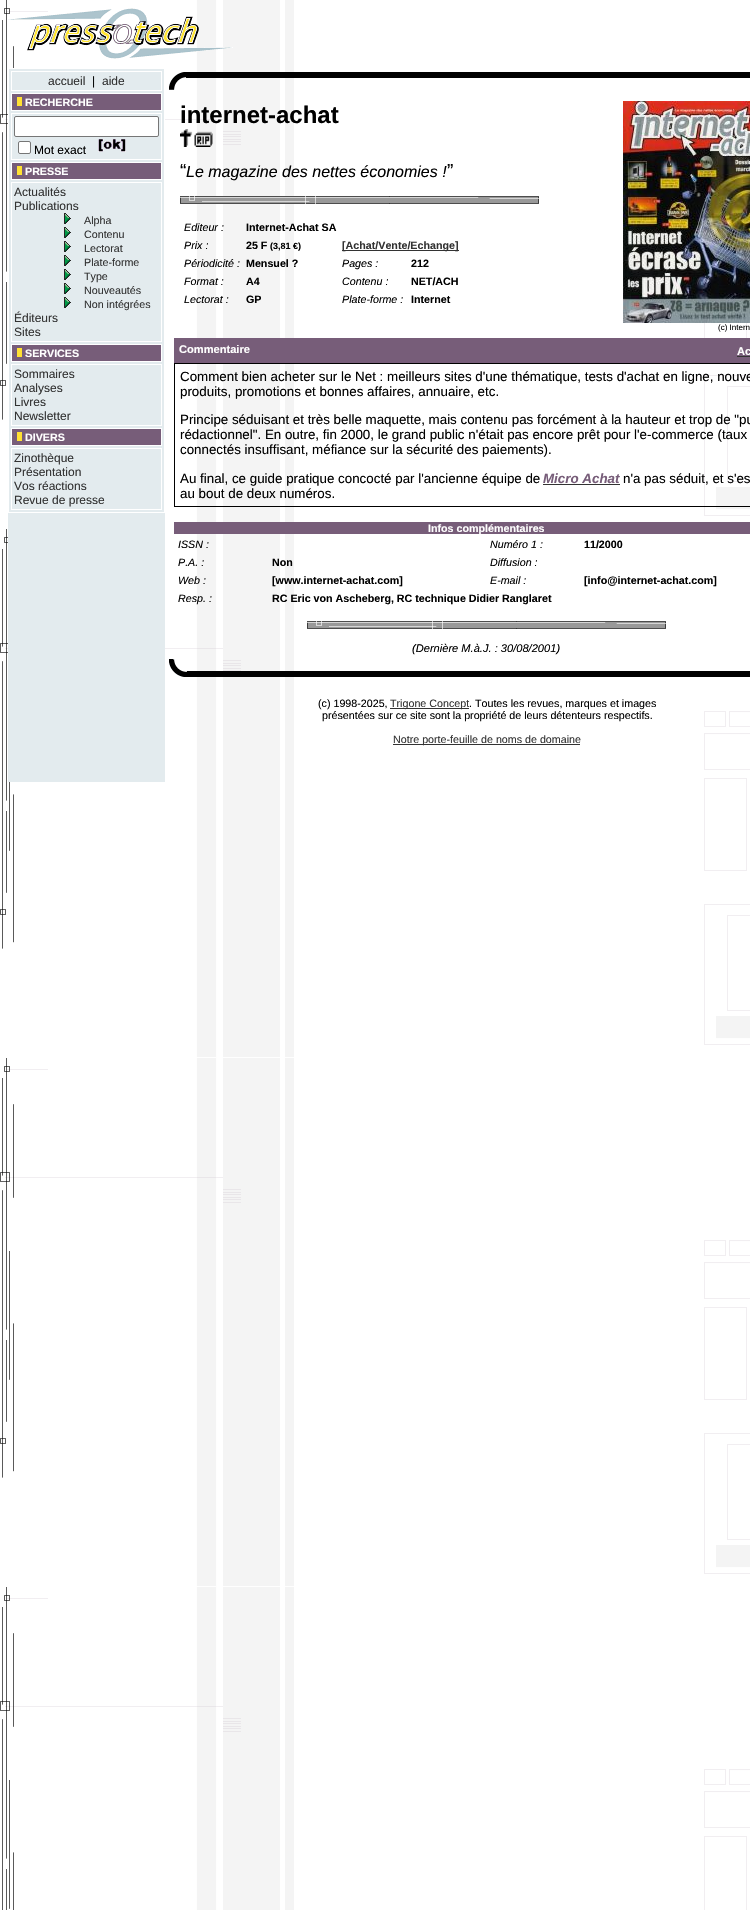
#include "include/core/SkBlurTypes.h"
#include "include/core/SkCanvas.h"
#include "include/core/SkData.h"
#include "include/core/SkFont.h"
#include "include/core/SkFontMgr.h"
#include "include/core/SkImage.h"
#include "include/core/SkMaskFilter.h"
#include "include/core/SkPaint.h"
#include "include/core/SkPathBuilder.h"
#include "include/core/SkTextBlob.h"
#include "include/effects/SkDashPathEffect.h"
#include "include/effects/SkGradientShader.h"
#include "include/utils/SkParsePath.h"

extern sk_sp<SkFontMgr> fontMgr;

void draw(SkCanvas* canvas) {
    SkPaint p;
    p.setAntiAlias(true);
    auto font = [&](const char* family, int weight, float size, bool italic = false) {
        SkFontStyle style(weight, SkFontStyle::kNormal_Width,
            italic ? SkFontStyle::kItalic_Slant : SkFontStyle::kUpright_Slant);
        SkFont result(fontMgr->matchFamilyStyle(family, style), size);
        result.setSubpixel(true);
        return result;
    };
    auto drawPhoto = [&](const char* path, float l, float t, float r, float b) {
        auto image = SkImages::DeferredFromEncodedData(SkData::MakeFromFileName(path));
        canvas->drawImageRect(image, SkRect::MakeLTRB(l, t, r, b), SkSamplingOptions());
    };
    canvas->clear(0xFFFFFFFF);
    drawPhoto("media/1.png", 0, 0, 750, 1910);
    drawPhoto("media/2.png", 8, 8, 233, 59);
    p.setColor(0xFFE3EBEE);
    canvas->drawRect(SkRect::MakeLTRB(8, 69, 165, 782), p);
    p.setStyle(SkPaint::kStroke_Style);
    p.setStrokeWidth(1);
    p.setColor(0xFFFFFFFF);
    canvas->drawRect(SkRect::MakeLTRB(8.5f, 68.5f, 164.5f, 512.5f), p);
    canvas->drawRect(SkRect::MakeLTRB(11.5f, 71.5f, 161.5f, 90.5f), p);
    auto font1 = font("Liberation Sans", 400, 12);
    p.setStyle(SkPaint::kFill_Style);
    p.setColor(0xFF333333);
    canvas->drawString("accueil", 48, 85, font1, p);
    p.setColor(0xFF000000);
    canvas->drawString("|", 92, 85, font1, p);
    p.setColor(0xFF333333);
    canvas->drawString("aide", 102, 85, font1, p);
    p.setColor(0xFF775D79);
    canvas->drawRect(SkRect::MakeLTRB(11.5f, 93.5f, 161.5f, 110.5f), p);
    p.setStyle(SkPaint::kStroke_Style);
    p.setColor(0xFFFFFFFF);
    canvas->drawRect(SkRect::MakeLTRB(11.5f, 93.5f, 161.5f, 110.5f), p);
    p.setStyle(SkPaint::kFill_Style);
    p.setColor(0xFFFFE132);
    canvas->drawRect(SkRect::MakeLTRB(17, 97, 22, 106), p);
    auto font2 = font("Liberation Sans", 700, 10.7f);
    p.setColor(0xFFFFFFFF);
    canvas->drawString("RECHERCHE", 25, 106, font2, p);
    p.setStyle(SkPaint::kStroke_Style);
    canvas->drawRect(SkRect::MakeLTRB(11.5f, 113.5f, 161.5f, 159.5f), p);
    p.setStyle(SkPaint::kFill_Style);
    canvas->drawRoundRect(SkRect::MakeLTRB(14.5f, 116.5f, 158.5f, 136.5f), 1.5f, 1.5f, p);
    p.setStyle(SkPaint::kStroke_Style);
    p.setColor(0xFF767676);
    canvas->drawRoundRect(SkRect::MakeLTRB(14.5f, 116.5f, 158.5f, 136.5f), 1.5f, 1.5f, p);
    p.setStyle(SkPaint::kFill_Style);
    p.setColor(0xFFFFFFFF);
    canvas->drawRoundRect(SkRect::MakeLTRB(18.5f, 141.5f, 30.5f, 153.5f), 1.5f, 1.5f, p);
    p.setStyle(SkPaint::kStroke_Style);
    p.setColor(0xFF767676);
    canvas->drawRoundRect(SkRect::MakeLTRB(18.5f, 141.5f, 30.5f, 153.5f), 1.5f, 1.5f, p);
    p.setStyle(SkPaint::kFill_Style);
    p.setColor(0xFF000000);
    canvas->drawString("Mot exact", 34, 154, font1, p);
    drawPhoto("media/3.png", 98, 139, 126, 152);
    p.setColor(0xFF775D79);
    canvas->drawRect(SkRect::MakeLTRB(11.5f, 162.5f, 161.5f, 179.5f), p);
    p.setStyle(SkPaint::kStroke_Style);
    p.setColor(0xFFFFFFFF);
    canvas->drawRect(SkRect::MakeLTRB(11.5f, 162.5f, 161.5f, 179.5f), p);
    p.setStyle(SkPaint::kFill_Style);
    p.setColor(0xFFFFE132);
    canvas->drawRect(SkRect::MakeLTRB(17, 166, 22, 175), p);
    p.setColor(0xFFFFFFFF);
    canvas->drawString("PRESSE", 25, 175, font2, p);
    p.setStyle(SkPaint::kStroke_Style);
    canvas->drawRect(SkRect::MakeLTRB(11.5f, 182.5f, 161.5f, 341.5f), p);
    p.setStyle(SkPaint::kFill_Style);
    p.setColor(0xFF333333);
    canvas->drawString("Actualités", 14, 196, font1, p);
    canvas->drawString("Publications", 14, 210, font1, p);
    drawPhoto("media/4.png", 64, 213, 71, 224);
    auto font3 = font("Liberation Sans", 400, 10.7f);
    canvas->drawString("Alpha", 84, 224, font3, p);
    drawPhoto("media/4.png", 64, 227, 71, 238);
    canvas->drawString("Contenu", 84, 238, font3, p);
    drawPhoto("media/4.png", 64, 241, 71, 252);
    canvas->drawString("Lectorat", 84, 252, font3, p);
    drawPhoto("media/4.png", 64, 255, 71, 266);
    canvas->drawString("Plate-forme", 84, 266, font3, p);
    drawPhoto("media/4.png", 64, 269, 71, 280);
    canvas->drawString("Type", 84, 280, font3, p);
    drawPhoto("media/4.png", 64, 283, 71, 294);
    canvas->drawString("Nouveautés", 84, 294, font3, p);
    drawPhoto("media/4.png", 64, 297, 71, 308);
    canvas->drawString("Non intégrées", 84, 308, font3, p);
    canvas->drawString("Éditeurs", 14, 322, font1, p);
    canvas->drawString("Sites", 14, 336, font1, p);
    p.setColor(0xFF775D79);
    canvas->drawRect(SkRect::MakeLTRB(11.5f, 344.5f, 161.5f, 361.5f), p);
    p.setStyle(SkPaint::kStroke_Style);
    p.setColor(0xFFFFFFFF);
    canvas->drawRect(SkRect::MakeLTRB(11.5f, 344.5f, 161.5f, 361.5f), p);
    p.setStyle(SkPaint::kFill_Style);
    p.setColor(0xFFFFE132);
    canvas->drawRect(SkRect::MakeLTRB(17, 348, 22, 357), p);
    p.setColor(0xFFFFFFFF);
    canvas->drawString("SERVICES", 25, 357, font2, p);
    p.setStyle(SkPaint::kStroke_Style);
    canvas->drawRect(SkRect::MakeLTRB(11.5f, 364.5f, 161.5f, 425.5f), p);
    p.setStyle(SkPaint::kFill_Style);
    p.setColor(0xFF333333);
    {
        const struct { const char* s; float x, y; } items[] = {
            {"Sommaires", 14, 378},
            {"Analyses", 14, 392},
            {"Livres", 14, 406},
            {"Newsletter", 14, 420},
        };
        for (auto [s, x, y] : items) {
            canvas->drawString(s, x, y, font1, p);
        }
    }
    p.setColor(0xFF775D79);
    canvas->drawRect(SkRect::MakeLTRB(11.5f, 428.5f, 161.5f, 445.5f), p);
    p.setStyle(SkPaint::kStroke_Style);
    p.setColor(0xFFFFFFFF);
    canvas->drawRect(SkRect::MakeLTRB(11.5f, 428.5f, 161.5f, 445.5f), p);
    p.setStyle(SkPaint::kFill_Style);
    p.setColor(0xFFFFE132);
    canvas->drawRect(SkRect::MakeLTRB(17, 432, 22, 441), p);
    p.setColor(0xFFFFFFFF);
    canvas->drawString("DIVERS", 25, 441, font2, p);
    p.setStyle(SkPaint::kStroke_Style);
    canvas->drawRect(SkRect::MakeLTRB(11.5f, 448.5f, 161.5f, 509.5f), p);
    p.setStyle(SkPaint::kFill_Style);
    p.setColor(0xFF333333);
    {
        const struct { const char* s; float x, y; } items[] = {
            {"Zinothèque", 14, 462},
            {"Présentation", 14, 476},
            {"Vos réactions", 14, 490},
            {"Revue de presse", 14, 504},
        };
        for (auto [s, x, y] : items) {
            canvas->drawString(s, x, y, font1, p);
        }
    }
    drawPhoto("media/5.png", 169, 72, 186, 90);
    p.setColor(0xFF000000);
    canvas->drawRect(SkRect::MakeLTRB(186, 72, 750, 78), p);
    auto font4 = font("Liberation Sans", 700, 24);
    canvas->drawString("internet-achat", 180, 123, font4, p);
    drawPhoto("media/6.png", 180, 129, 213, 147);
    auto font5 = font("Liberation Sans", 400, 19);
    canvas->drawString("“", 180, 177, font5, p);
    auto font6 = font("Liberation Sans", 400, 16, true);
    canvas->drawString("Le magazine des nettes économies !", 186, 177, font6, p);
    canvas->drawString("”", 447, 177, font5, p);
    drawPhoto("media/7.png", 180, 196, 539, 204);
    auto font7 = font("Liberation Sans", 400, 10.7f, true);
    canvas->drawString("Editeur :", 184, 231, font7, p);
    canvas->drawString("Internet-Achat SA", 246, 231, font2, p);
    canvas->drawString("Prix :", 184, 249, font7, p);
    canvas->drawString("25 F", 246, 249, font2, p);
    auto font8 = font("Liberation Sans", 700, 9);
    canvas->drawString("(3,81 €)", 270, 249, font8, p);
    p.setColor(0xFF333333);
    canvas->drawRect(SkRect::MakeLTRB(342, 250, 459, 251), p);
    canvas->drawString("[Achat/Vente/Echange]", 342, 249, font2, p);
    p.setColor(0xFF000000);
    canvas->drawString("Périodicité :", 184, 267, font7, p);
    canvas->drawString("Mensuel ?", 246, 267, font2, p);
    canvas->drawString("Pages :", 342, 267, font7, p);
    canvas->drawString("212", 411, 267, font2, p);
    canvas->drawString("Format :", 184, 285, font7, p);
    canvas->drawString("A4", 246, 285, font2, p);
    canvas->drawString("Contenu :", 342, 285, font7, p);
    canvas->drawString("NET/ACH", 411, 285, font2, p);
    canvas->drawString("Lectorat :", 184, 303, font7, p);
    canvas->drawString("GP", 246, 303, font2, p);
    canvas->drawString("Plate-forme :", 342, 303, font7, p);
    canvas->drawString("Internet", 411, 303, font2, p);
    drawPhoto("media/8.png", 623, 101, 750, 323);
    auto font9 = font("Liberation Sans", 400, 8);
    canvas->drawString("(c) Intern", 718, 330, font9, p);
    p.setColor(0xFF775D79);
    canvas->drawRect(SkRect::MakeLTRB(174, 338, 750, 363), p);
    auto font10 = font("Liberation Sans", 700, 11.1f);
    p.setColor(0xFFFFFFFF);
    canvas->drawString("Commentaire", 179, 353, font10, p);
    canvas->drawString("Ac", 737, 355, font10, p);
    p.setColor(0xFF333333);
    canvas->drawRect(SkRect::MakeLTRB(737, 356, 750, 357), p);
    p.setStyle(SkPaint::kStroke_Style);
    p.setColor(0xFF000000);
    canvas->drawRect(SkRect::MakeLTRB(174.5f, 363.5f, 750.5f, 506.5f), p);
    auto font11 = font("Liberation Sans", 400, 13.35f);
    p.setStyle(SkPaint::kFill_Style);
    {
        const struct { const char* s; float x, y; } items[] = {
            {"Comment bien acheter sur le Net : meilleurs sites d'une thématique, tests d'achat en ligne, nouve", 180, 381},
            {"produits, promotions et bonnes affaires, annuaire, etc.", 180, 396},
            {"Principe séduisant et très belle maquette, mais contenu pas forcément à la hauteur et trop de \"pu", 180, 424},
            {"rédactionnel\". En outre, fin 2000, le grand public n'était pas encore prêt pour l'e-commerce (taux", 180, 439},
            {"connectés insuffisant, méfiance sur la sécurité des paiements).", 180, 454},
            {"Au final, ce guide pratique concocté par l'ancienne équipe de", 180, 483},
        };
        for (auto [s, x, y] : items) {
            canvas->drawString(s, x, y, font11, p);
        }
    }
    auto font12 = font("Liberation Sans", 700, 13.35f, true);
    p.setColor(0xFF775D79);
    canvas->drawString("Micro Achat", 543, 483, font12, p);
    p.setColor(0xFF333333);
    canvas->drawRect(SkRect::MakeLTRB(543, 484, 620, 485), p);
    p.setColor(0xFF000000);
    canvas->drawString("n'a pas séduit, et s'es", 623, 483, font11, p);
    canvas->drawString("au bout de deux numéros.", 180, 498, font11, p);
    p.setColor(0xFF775D79);
    canvas->drawRect(SkRect::MakeLTRB(174, 522, 750, 534), p);
    p.setColor(0xFFFFFFFF);
    canvas->drawString("Infos complémentaires", 428, 532, font2, p);
    p.setColor(0xFF000000);
    canvas->drawString("ISSN :", 178, 548, font7, p);
    canvas->drawString("Numéro 1 :", 490, 548, font7, p);
    canvas->drawString("11/2000", 584, 548, font2, p);
    canvas->drawString("P.A. :", 178, 566, font7, p);
    canvas->drawString("Non", 272, 566, font2, p);
    canvas->drawString("Diffusion :", 490, 566, font7, p);
    canvas->drawString("Web :", 178, 584, font7, p);
    canvas->drawString("[www.internet-achat.com]", 272, 584, font2, p);
    canvas->drawString("E-mail :", 490, 584, font7, p);
    canvas->drawString("[info@internet-achat.com]", 584, 584, font2, p);
    canvas->drawString("Resp. :", 178, 602, font7, p);
    canvas->drawString("RC Eric von Ascheberg, RC technique Didier Ranglaret", 272, 602, font2, p);
    drawPhoto("media/7.png", 307, 621, 666, 629);
    auto font13 = font("Liberation Sans", 400, 11.1f, true);
    canvas->drawString("(Dernière M.à.J. : 30/08/2001)", 412, 652, font13, p);
    drawPhoto("media/9.png", 169, 659, 187, 677);
    canvas->drawRect(SkRect::MakeLTRB(187, 671, 750, 677), p);
    canvas->drawString("(c) 1998-2025,", 318, 707, font3, p);
    p.setColor(0xFF333333);
    canvas->drawRect(SkRect::MakeLTRB(390, 708, 469, 709), p);
    canvas->drawString("Trigone Concept", 390, 707, font3, p);
    p.setColor(0xFF000000);
    canvas->drawString(". Toutes les revues, marques et images", 469, 707, font3, p);
    canvas->drawString("présentées sur ce site sont la propriété de leurs détenteurs respectifs.", 322, 719, font3, p);
    p.setColor(0xFF333333);
    canvas->drawRect(SkRect::MakeLTRB(393, 744, 580, 745), p);
    canvas->drawString("Notre porte-feuille de noms de domaine", 393, 743, font3, p);
}
